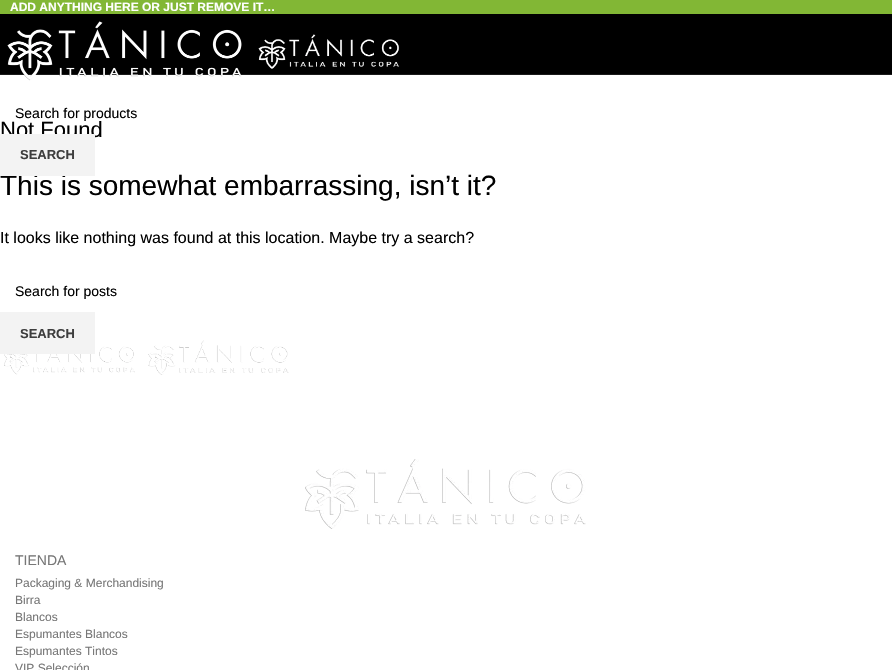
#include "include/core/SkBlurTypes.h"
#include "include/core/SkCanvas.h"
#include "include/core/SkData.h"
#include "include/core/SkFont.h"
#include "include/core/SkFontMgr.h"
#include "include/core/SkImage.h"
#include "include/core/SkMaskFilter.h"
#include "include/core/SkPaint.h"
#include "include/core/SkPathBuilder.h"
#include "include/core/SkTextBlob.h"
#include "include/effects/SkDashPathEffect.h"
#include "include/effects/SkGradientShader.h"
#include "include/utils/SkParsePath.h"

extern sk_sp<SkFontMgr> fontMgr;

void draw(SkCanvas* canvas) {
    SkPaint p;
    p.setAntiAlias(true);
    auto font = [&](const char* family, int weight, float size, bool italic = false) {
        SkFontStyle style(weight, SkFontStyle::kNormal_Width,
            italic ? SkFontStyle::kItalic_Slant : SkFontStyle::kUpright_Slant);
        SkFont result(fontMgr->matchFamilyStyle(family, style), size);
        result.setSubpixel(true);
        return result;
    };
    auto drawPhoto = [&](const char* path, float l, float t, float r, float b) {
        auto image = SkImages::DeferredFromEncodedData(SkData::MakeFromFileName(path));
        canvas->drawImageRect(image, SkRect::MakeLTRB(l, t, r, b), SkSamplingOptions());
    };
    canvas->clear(0xFFFFFFFF);
    p.setColor(0xFF82B735);
    canvas->drawRect(SkRect::MakeLTRB(0, 0, 892, 14), p);
    auto font1 = font("Liberation Sans", 700, 12);
    p.setColor(0xFFFFFFFF);
    canvas->drawString("ADD ANYTHING HERE OR JUST REMOVE IT…", 10, 11, font1, p);
    p.setColor(0xFF000000);
    canvas->drawRect(SkRect::MakeLTRB(0, 14, 892, 74), p);
    p.setColor(0xFF1A1A1A);
    canvas->drawRect(SkRect::MakeLTRB(0, 74, 892, 75), p);
    drawPhoto("media/1.png", 7, 21, 242, 81);
    drawPhoto("media/2.png", 258, 34, 400, 69);
    auto font2 = font("Liberation Sans", 400, 14);
    p.setColor(0xFF000000);
    canvas->drawString("Search for products", 15, 118, font2, p);
    auto font3 = font("Liberation Sans", 400, 22);
    canvas->drawString("Not Found", 0, 137, font3, p);
    auto font4 = font("Liberation Sans", 400, 28);
    canvas->drawString("This is somewhat embarrassing, isn’t it?", 0, 195, font4, p);
    p.setColor(0xFFF3F3F3);
    canvas->drawRect(SkRect::MakeLTRB(0, 134, 95, 176), p);
    auto font5 = font("Liberation Sans", 700, 13);
    p.setColor(0xFF3E3E3E);
    canvas->drawString("SEARCH", 20, 159, font5, p);
    drawPhoto("media/3.png", 4, 346, 135, 375);
    drawPhoto("media/4.png", 148, 340, 289, 375);
    auto font6 = font("Liberation Sans", 400, 16);
    p.setColor(0xFF000000);
    canvas->drawString("It looks like nothing was found at this location. Maybe try a search?", 0, 243, font6, p);
    canvas->drawString("Search for posts", 15, 296, font2, p);
    p.setColor(0xFFF3F3F3);
    canvas->drawRect(SkRect::MakeLTRB(0, 312, 95, 354), p);
    p.setColor(0xFF3E3E3E);
    canvas->drawString("SEARCH", 20, 338, font5, p);
    drawPhoto("media/5.png", 305, 459, 586, 529);
    p.setColor(0xFF777777);
    canvas->drawString("TIENDA", 15, 565, font2, p);
    auto font7 = font("Liberation Sans", 400, 12);
    {
        const struct { const char* s; float x, y; } items[] = {
            {"Packaging & Merchandising", 15, 587},
            {"Birra", 15, 604},
            {"Blancos", 15, 621},
            {"Espumantes Blancos", 15, 638},
            {"Espumantes Tintos", 15, 655},
            {"VIP Selección", 15, 672},
        };
        for (auto [s, x, y] : items) {
            canvas->drawString(s, x, y, font7, p);
        }
    }
}
